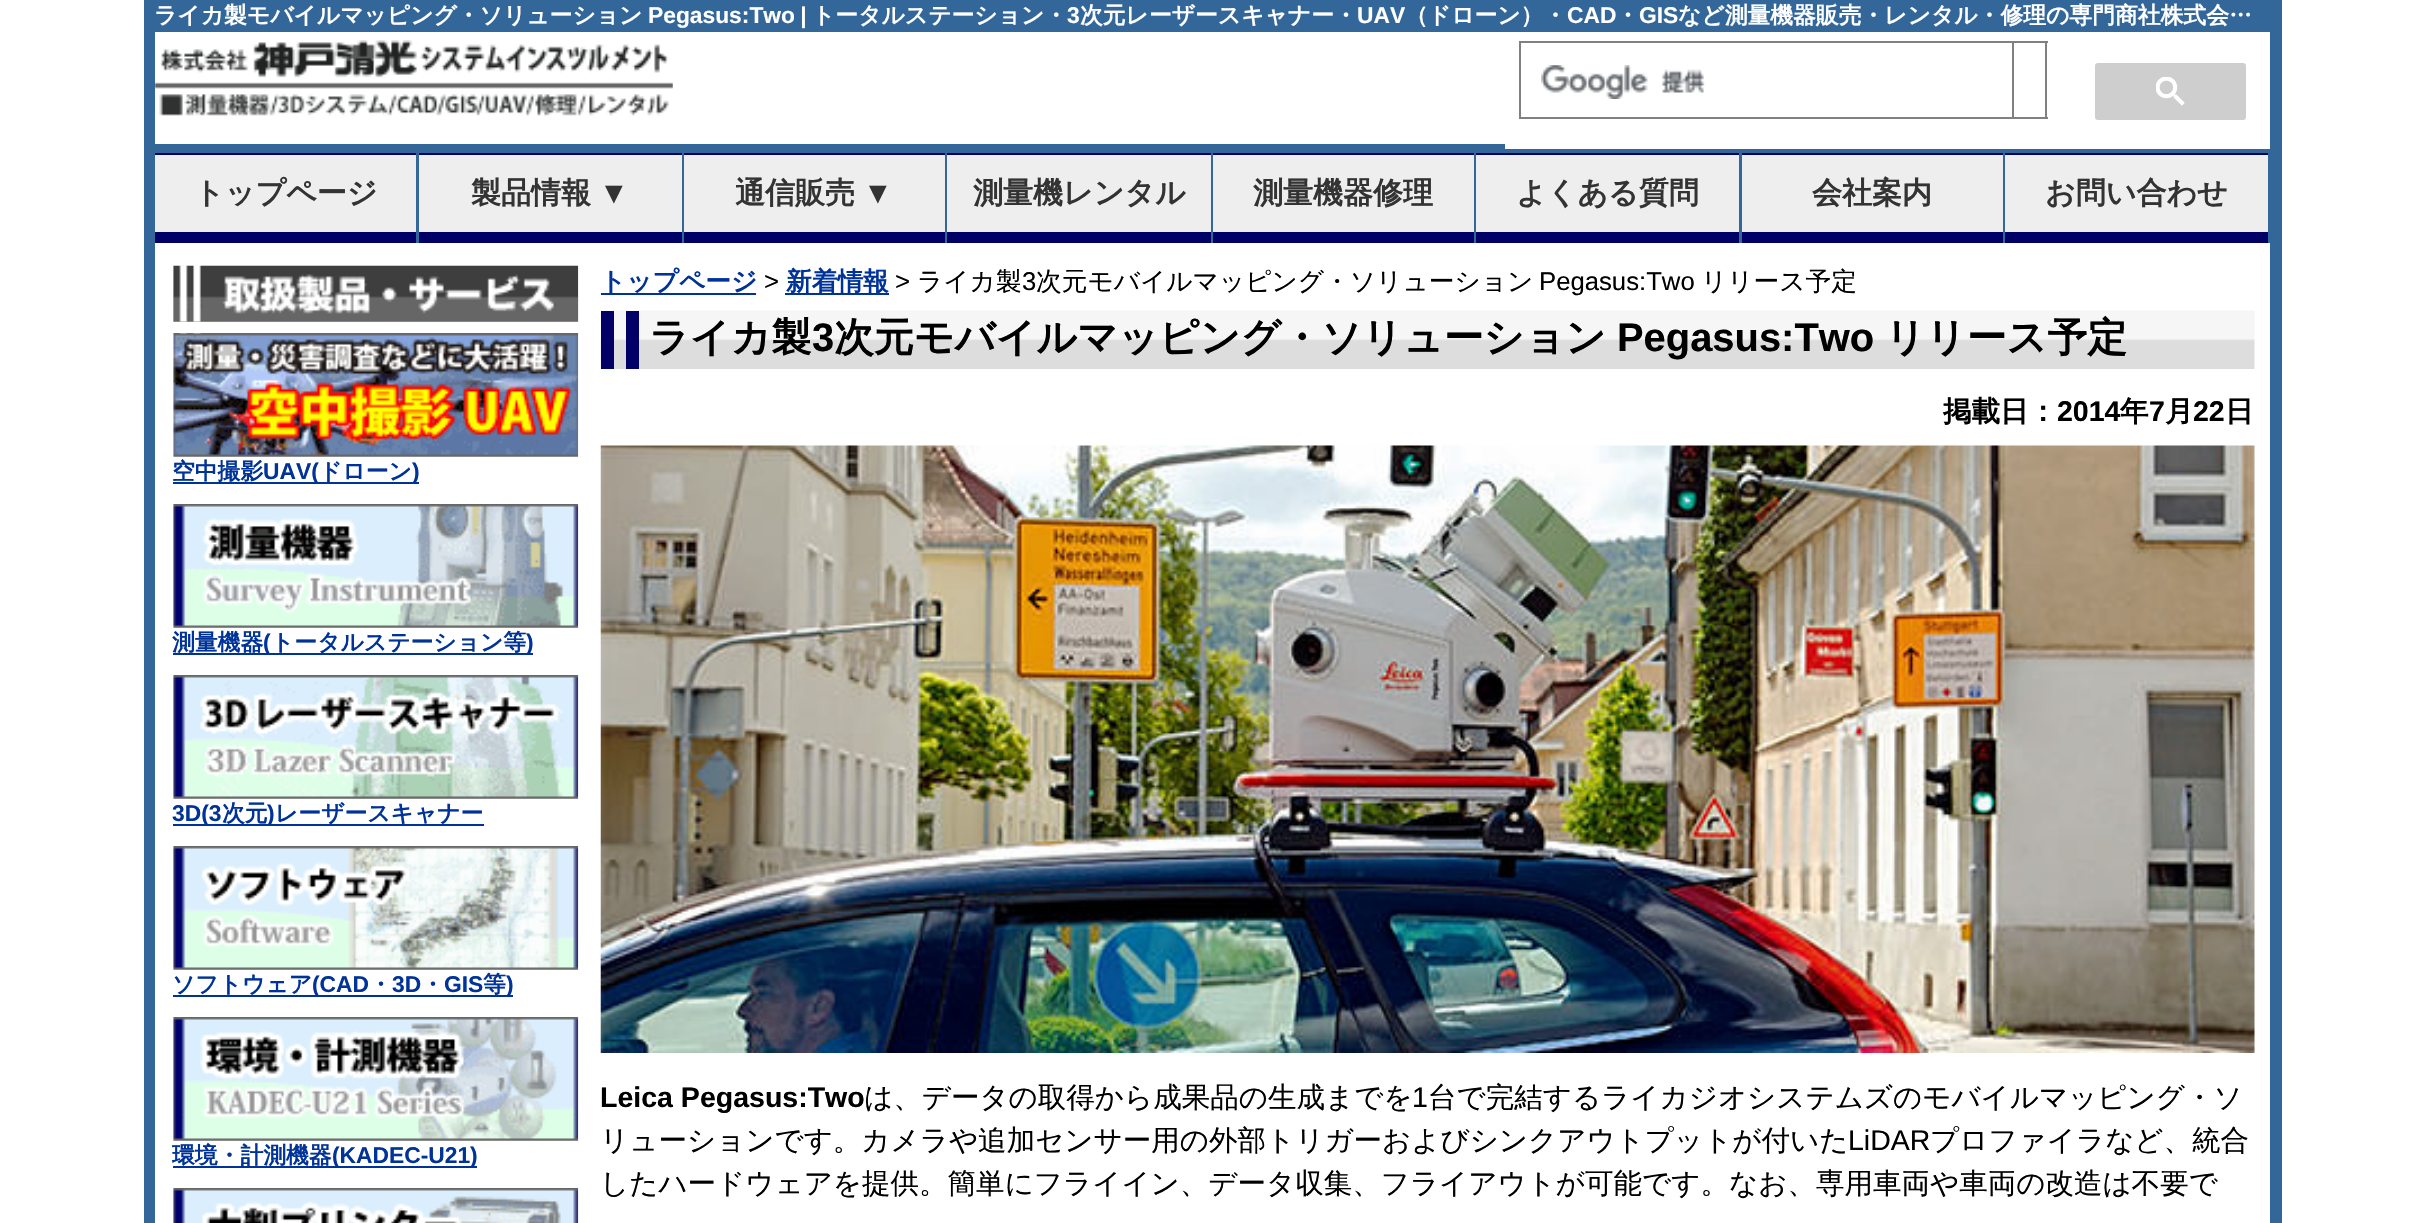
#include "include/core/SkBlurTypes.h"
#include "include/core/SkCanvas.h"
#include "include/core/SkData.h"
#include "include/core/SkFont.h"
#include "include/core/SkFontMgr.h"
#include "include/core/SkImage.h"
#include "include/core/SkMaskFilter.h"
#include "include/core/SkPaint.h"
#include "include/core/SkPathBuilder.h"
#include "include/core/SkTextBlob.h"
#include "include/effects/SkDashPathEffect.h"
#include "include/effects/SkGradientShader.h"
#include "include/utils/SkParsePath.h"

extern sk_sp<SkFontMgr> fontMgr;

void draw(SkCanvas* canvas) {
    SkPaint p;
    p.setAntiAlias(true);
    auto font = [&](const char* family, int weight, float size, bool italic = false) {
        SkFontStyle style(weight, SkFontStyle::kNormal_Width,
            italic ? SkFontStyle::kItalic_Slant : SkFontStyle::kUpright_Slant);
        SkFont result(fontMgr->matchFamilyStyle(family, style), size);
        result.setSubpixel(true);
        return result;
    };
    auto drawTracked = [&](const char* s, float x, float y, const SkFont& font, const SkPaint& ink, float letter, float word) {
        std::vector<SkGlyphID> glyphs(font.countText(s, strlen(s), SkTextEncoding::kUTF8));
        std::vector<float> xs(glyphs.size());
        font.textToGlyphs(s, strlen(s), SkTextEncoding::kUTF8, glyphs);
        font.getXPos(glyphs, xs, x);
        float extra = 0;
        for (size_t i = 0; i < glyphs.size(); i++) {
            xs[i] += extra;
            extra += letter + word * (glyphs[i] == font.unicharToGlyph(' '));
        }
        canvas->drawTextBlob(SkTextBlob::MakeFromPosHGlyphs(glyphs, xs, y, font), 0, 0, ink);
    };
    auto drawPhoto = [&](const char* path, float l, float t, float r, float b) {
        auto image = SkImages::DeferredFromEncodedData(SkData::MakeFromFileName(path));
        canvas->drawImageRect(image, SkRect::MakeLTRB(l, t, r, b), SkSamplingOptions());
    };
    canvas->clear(0xFFFFFFFF);
    p.setColor(0xFF336699);
    canvas->drawRect(SkRect::MakeLTRB(144, 0, 2282, 1223), p);
    p.setColor(0xFFFFFFFF);
    canvas->drawRect(SkRect::MakeLTRB(155, 32, 1505, 144), p);
    auto font1 = font("WenQuanYi Zen Hei", 700, 22.8f);
    canvas->drawString("ライカ製モバイルマッピング・ソリューション", 154, 23, font1, p);
    auto font2 = font("Liberation Sans", 700, 22.8f);
    drawTracked("Pegasus:Two |", 648, 23, font2, p, 0, -1);
    canvas->drawString("トータルステーション・", 812, 23, font1, p);
    canvas->drawString("3", 1067, 23, font2, p);
    canvas->drawString("次元レーザースキャナー・", 1080, 23, font1, p);
    canvas->drawString("UAV", 1357, 23, font2, p);
    canvas->drawString("（ドローン）・", 1405, 23, font1, p);
    canvas->drawString("CAD", 1567, 23, font2, p);
    canvas->drawString("・", 1616, 23, font1, p);
    canvas->drawString("GIS", 1639, 23, font2, p);
    canvas->drawString("など測量機器販売・レンタル・修理の専門商社株式会…", 1678, 23, font1, p);
    drawPhoto("media/1.png", 155, 40, 673, 116);
    canvas->drawRect(SkRect::MakeLTRB(1505, 34, 2270, 149), p);
    canvas->drawRect(SkRect::MakeLTRB(1505, 32, 2270, 34), p);
    p.setColor(0xFFCECECE);
    canvas->drawRoundRect(SkRect::MakeLTRB(2094, 62, 2247, 121), 4, 4, p);
    p.setStyle(SkPaint::kStroke_Style);
    p.setStrokeWidth(2);
    p.setColor(0xFFFFFFFF);
    canvas->drawRoundRect(SkRect::MakeLTRB(2094, 62, 2247, 121), 4, 4, p);
    drawPhoto("media/2.png", 2156, 77, 2185, 106);
    p.setStyle(SkPaint::kFill_Style);
    {
        const struct { float l, t, r, b; SkColor color; } items[] = {
            {1519, 41, 2048, 43, 0xFF808080},
            {2045, 41, 2047, 119, 0xFF808080},
            {1519, 117, 2048, 119, 0xFF808080},
            {1519, 41, 1521, 119, 0xFF808080},
        };
        for (auto [l, t, r, b, color] : items) {
            p.setColor(color);
            canvas->drawRect(SkRect::MakeLTRB(l, t, r, b), p);
        }
    }
    drawPhoto("media/3.png", 1541, 65, 1706, 99);
    {
        const struct { float l, t, r, b; SkColor color; } items[] = {
            {2012, 41, 2014, 119, 0xFF808080},
            {155, 155, 416, 232, 0xFFEEEEEE},
            {155, 153, 416, 155, 0xFF000066},
            {155, 232, 416, 243, 0xFF000066},
        };
        for (auto [l, t, r, b, color] : items) {
            p.setColor(color);
            canvas->drawRect(SkRect::MakeLTRB(l, t, r, b), p);
        }
    }
    auto font3 = font("WenQuanYi Zen Hei", 700, 30);
    p.setColor(0xFF333333);
    canvas->drawString("トップページ", 194, 203, font3, p);
    {
        const struct { float l, t, r, b; SkColor color; } items[] = {
            {419, 155, 682, 232, 0xFFEEEEEE},
            {419, 153, 682, 155, 0xFF000066},
            {419, 232, 682, 243, 0xFF000066},
        };
        for (auto [l, t, r, b, color] : items) {
            p.setColor(color);
            canvas->drawRect(SkRect::MakeLTRB(l, t, r, b), p);
        }
    }
    p.setColor(0xFF333333);
    canvas->drawString("製品情報", 471, 203, font3, p);
    auto font4 = font("Liberation Sans", 700, 30);
    canvas->drawString("▼", 599, 203, font4, p);
    {
        const struct { float l, t, r, b; SkColor color; } items[] = {
            {684, 155, 945, 232, 0xFFEEEEEE},
            {684, 153, 945, 155, 0xFF000066},
            {684, 232, 945, 243, 0xFF000066},
        };
        for (auto [l, t, r, b, color] : items) {
            p.setColor(color);
            canvas->drawRect(SkRect::MakeLTRB(l, t, r, b), p);
        }
    }
    p.setColor(0xFF333333);
    canvas->drawString("通信販売", 735, 203, font3, p);
    canvas->drawString("▼", 863, 203, font4, p);
    {
        const struct { float l, t, r, b; SkColor color; } items[] = {
            {947, 155, 1211, 232, 0xFFEEEEEE},
            {947, 153, 1211, 155, 0xFF000066},
            {947, 232, 1211, 243, 0xFF000066},
        };
        for (auto [l, t, r, b, color] : items) {
            p.setColor(color);
            canvas->drawRect(SkRect::MakeLTRB(l, t, r, b), p);
        }
    }
    p.setColor(0xFF333333);
    canvas->drawString("測量機レンタル", 973, 203, font3, p);
    {
        const struct { float l, t, r, b; SkColor color; } items[] = {
            {1213, 155, 1474, 232, 0xFFEEEEEE},
            {1213, 153, 1474, 155, 0xFF000066},
            {1213, 232, 1474, 243, 0xFF000066},
        };
        for (auto [l, t, r, b, color] : items) {
            p.setColor(color);
            canvas->drawRect(SkRect::MakeLTRB(l, t, r, b), p);
        }
    }
    p.setColor(0xFF333333);
    canvas->drawString("測量機器修理", 1253, 203, font3, p);
    {
        const struct { float l, t, r, b; SkColor color; } items[] = {
            {1476, 155, 1739, 232, 0xFFEEEEEE},
            {1476, 153, 1739, 155, 0xFF000066},
            {1476, 232, 1739, 243, 0xFF000066},
        };
        for (auto [l, t, r, b, color] : items) {
            p.setColor(color);
            canvas->drawRect(SkRect::MakeLTRB(l, t, r, b), p);
        }
    }
    p.setColor(0xFF333333);
    canvas->drawString("よくある質問", 1516, 203, font3, p);
    {
        const struct { float l, t, r, b; SkColor color; } items[] = {
            {1742, 155, 2003, 232, 0xFFEEEEEE},
            {1742, 153, 2003, 155, 0xFF000066},
            {1742, 232, 2003, 243, 0xFF000066},
        };
        for (auto [l, t, r, b, color] : items) {
            p.setColor(color);
            canvas->drawRect(SkRect::MakeLTRB(l, t, r, b), p);
        }
    }
    p.setColor(0xFF333333);
    canvas->drawString("会社案内", 1812, 203, font3, p);
    {
        const struct { float l, t, r, b; SkColor color; } items[] = {
            {2005, 155, 2268, 232, 0xFFEEEEEE},
            {2005, 153, 2268, 155, 0xFF000066},
            {2005, 232, 2268, 243, 0xFF000066},
        };
        for (auto [l, t, r, b, color] : items) {
            p.setColor(color);
            canvas->drawRect(SkRect::MakeLTRB(l, t, r, b), p);
        }
    }
    p.setColor(0xFF333333);
    canvas->drawString("お問い合わせ", 2045, 203, font3, p);
    p.setColor(0xFFFFFFFF);
    canvas->drawRect(SkRect::MakeLTRB(155, 243, 2270, 1223), p);
    drawPhoto("media/4.png", 173, 265, 579, 322);
    drawPhoto("media/5.png", 173, 265, 579, 322);
    drawPhoto("media/6.png", 173, 333, 579, 457);
    p.setColor(0xFF003399);
    canvas->drawRect(SkRect::MakeLTRB(173, 482, 419, 484), p);
    canvas->drawString("空中撮影", 172, 479, font1, p);
    canvas->drawString("UAV(", 263, 479, font2, p);
    canvas->drawString("ドローン", 319, 479, font1, p);
    canvas->drawString(")", 412, 479, font2, p);
    drawPhoto("media/7.png", 173, 504, 579, 628);
    canvas->drawRect(SkRect::MakeLTRB(173, 653, 533, 655), p);
    canvas->drawString("測量機器", 172, 650, font1, p);
    canvas->drawString("(", 263, 650, font2, p);
    canvas->drawString("トータルステーション等", 271, 650, font1, p);
    canvas->drawString(")", 526, 650, font2, p);
    drawPhoto("media/8.png", 173, 675, 579, 799);
    canvas->drawRect(SkRect::MakeLTRB(173, 824, 484, 826), p);
    canvas->drawString("3D(3", 172, 821, font2, p);
    canvas->drawString("次元", 222, 821, font1, p);
    canvas->drawString(")", 267, 821, font2, p);
    canvas->drawString("レーザースキャナー", 275, 821, font1, p);
    drawPhoto("media/9.png", 173, 846, 579, 970);
    canvas->drawString("ソフトウェア", 172, 992, font1, p);
    canvas->drawRect(SkRect::MakeLTRB(173, 995, 513, 997), p);
    canvas->drawString("(CAD", 312, 992, font2, p);
    canvas->drawString("・", 369, 992, font1, p);
    canvas->drawString("3D", 392, 992, font2, p);
    canvas->drawString("・", 421, 992, font1, p);
    canvas->drawString("GIS", 444, 992, font2, p);
    canvas->drawString("等", 483, 992, font1, p);
    canvas->drawString(")", 506, 992, font2, p);
    drawPhoto("media/10.png", 173, 1017, 579, 1141);
    canvas->drawRect(SkRect::MakeLTRB(173, 1166, 477, 1168), p);
    canvas->drawString("環境・計測機器", 172, 1163, font1, p);
    canvas->drawString("(KADEC-U21)", 332, 1163, font2, p);
    drawPhoto("media/11.png", 173, 1188, 579, 1223);
    canvas->drawRect(SkRect::MakeLTRB(601, 293, 756, 295), p);
    auto font5 = font("WenQuanYi Zen Hei", 700, 25.7f);
    canvas->drawString("トップページ", 600, 290, font5, p);
    auto font6 = font("Liberation Sans", 400, 25.7f);
    p.setColor(0xFF000000);
    canvas->drawString(">", 764, 290, font6, p);
    p.setColor(0xFF003399);
    canvas->drawRect(SkRect::MakeLTRB(785, 293, 889, 295), p);
    canvas->drawString("新着情報", 786, 290, font5, p);
    p.setColor(0xFF000000);
    canvas->drawString(">", 895, 290, font6, p);
    auto font7 = font("WenQuanYi Zen Hei", 500, 25.7f);
    canvas->drawString("ライカ製", 917, 290, font7, p);
    canvas->drawString("3", 1022, 290, font6, p);
    canvas->drawString("次元モバイルマッピング・ソリューション", 1036, 290, font7, p);
    canvas->drawString("Pegasus:Two", 1539, 290, font6, p);
    canvas->drawString("リリース予定", 1701, 290, font7, p);
    drawPhoto("media/12.png", 600, 310, 2255, 369);
    p.setColor(0xFF000066);
    canvas->drawRect(SkRect::MakeLTRB(601, 311, 614, 369), p);
    canvas->drawRect(SkRect::MakeLTRB(626, 311, 639, 369), p);
    auto font8 = font("WenQuanYi Zen Hei", 700, 39.9f);
    p.setColor(0xFF000000);
    canvas->drawString("ライカ製", 649, 351, font8, p);
    auto font9 = font("Liberation Sans", 700, 39.9f);
    canvas->drawString("3", 812, 351, font9, p);
    canvas->drawString("次元モバイルマッピング・ソリューション", 834, 351, font8, p);
    canvas->drawString("Pegasus:Two", 1617, 351, font9, p);
    canvas->drawString("リリース予定", 1885, 351, font8, p);
    auto font10 = font("WenQuanYi Zen Hei", 700, 28.52f);
    canvas->drawString("掲載日：", 1943, 421, font10, p);
    auto font11 = font("Liberation Sans", 700, 28.52f);
    canvas->drawString("2014", 2057, 421, font11, p);
    canvas->drawString("年", 2120, 421, font10, p);
    canvas->drawString("7", 2149, 421, font11, p);
    canvas->drawString("月", 2165, 421, font10, p);
    canvas->drawString("22", 2193, 421, font11, p);
    canvas->drawString("日", 2225, 421, font10, p);
    drawPhoto("media/13.png", 600, 445, 2255, 1053);
    canvas->drawString("Leica Pegasus:Two", 600, 1107, font11, p);
    auto font12 = font("WenQuanYi Zen Hei", 500, 28.52f);
    canvas->drawString("は、データの取得から成果品の生成までを", 864, 1107, font12, p);
    auto font13 = font("Liberation Sans", 400, 28.52f);
    canvas->drawString("1", 1412, 1107, font13, p);
    canvas->drawString("台で完結するライカジオシステムズのモバイルマッピング・ソ", 1428, 1107, font12, p);
    canvas->drawString("リューションです。カメラや追加センサー用の外部トリガーおよびシンクアウトプットが付いた", 600, 1150, font12, p);
    canvas->drawString("LiDAR", 1848, 1150, font13, p);
    canvas->drawString("プロファイラなど、統合", 1930, 1150, font12, p);
    canvas->drawString("したハードウェアを提供。簡単にフライイン、データ収集、フライアウトが可能です。なお、専用車両や車両の改造は不要で", 600, 1193, font12, p);
}
